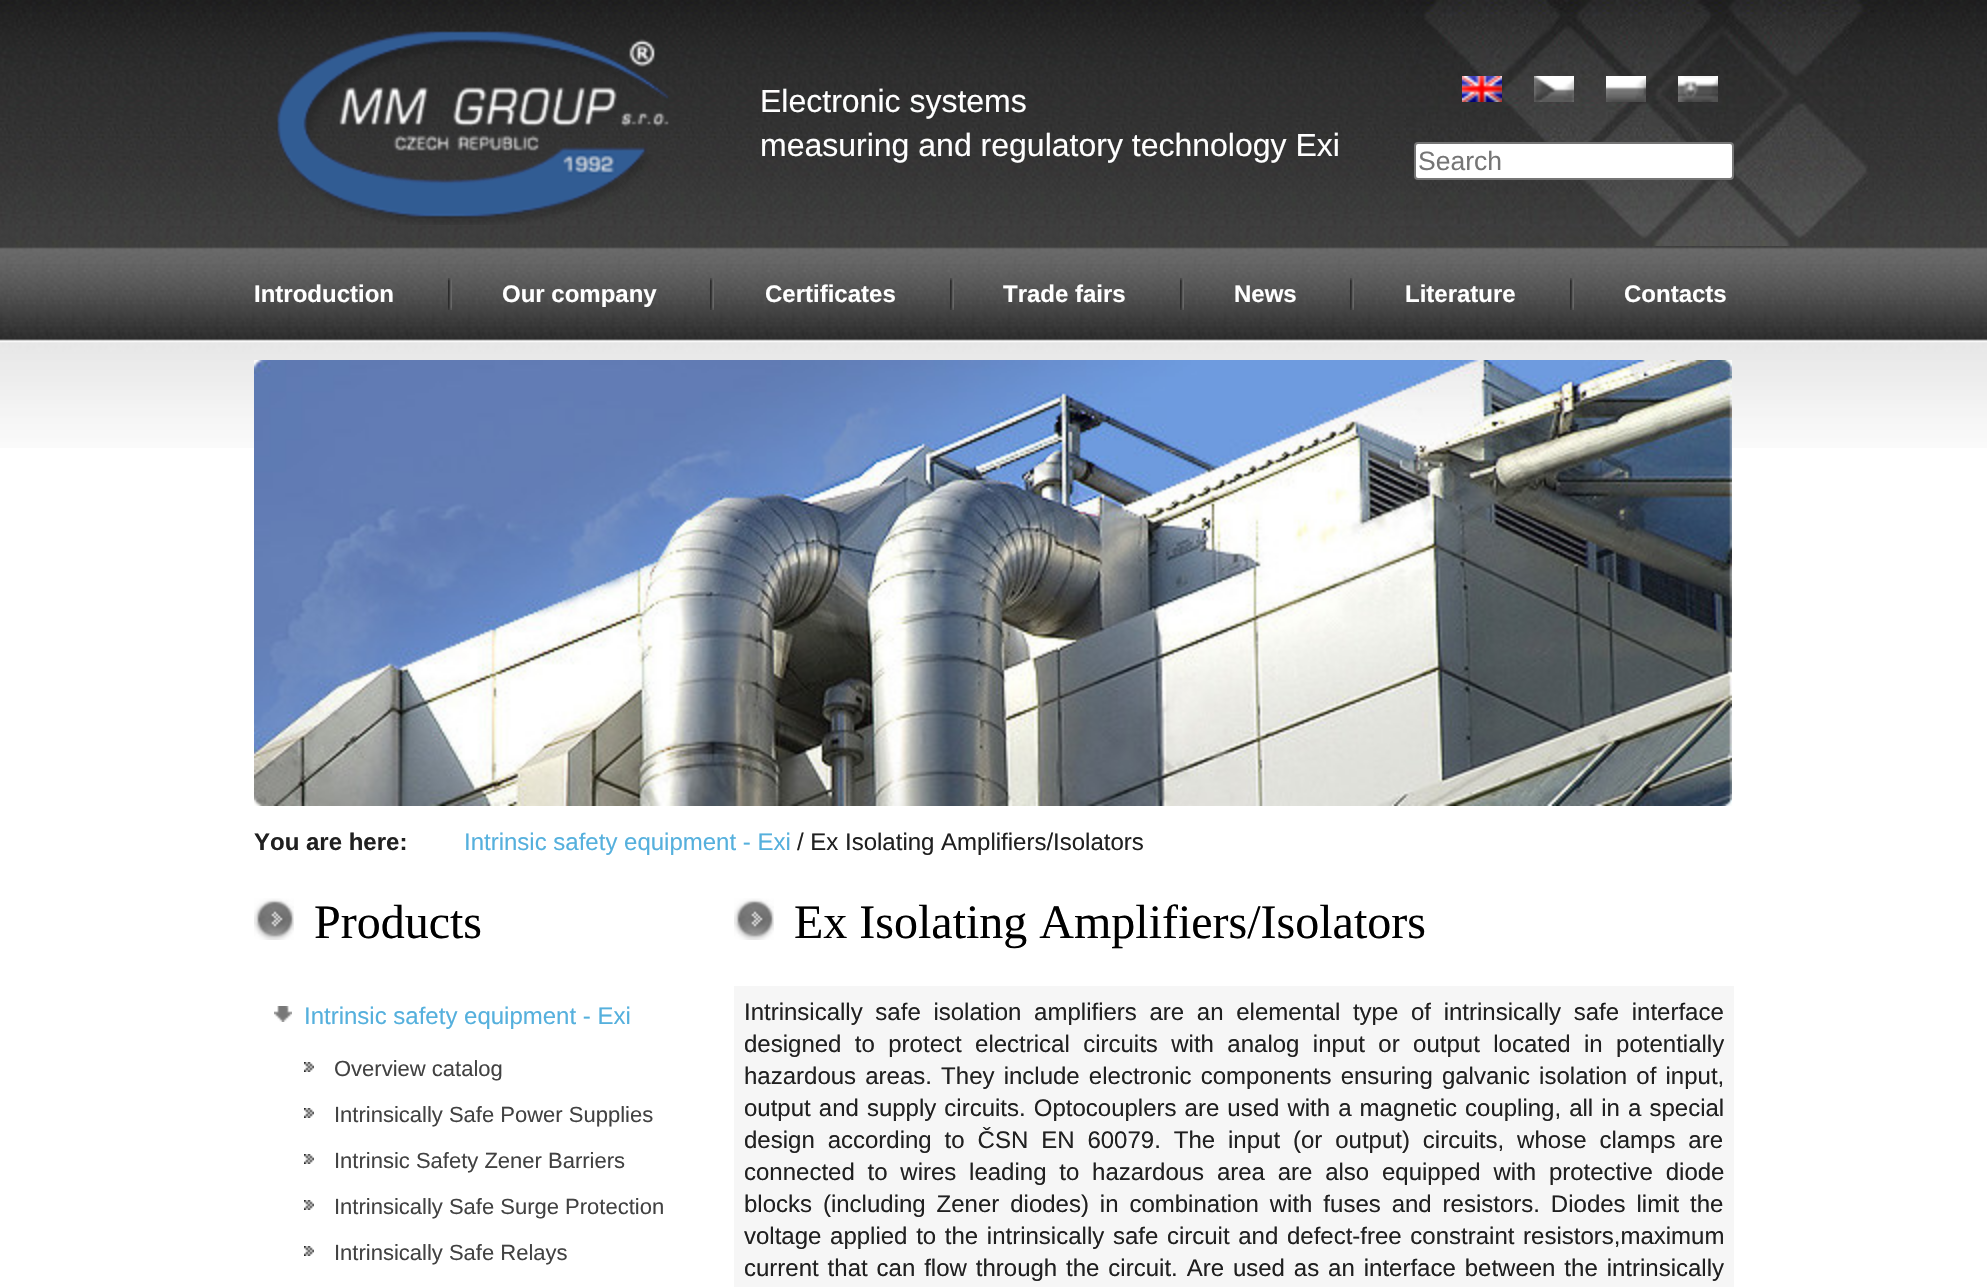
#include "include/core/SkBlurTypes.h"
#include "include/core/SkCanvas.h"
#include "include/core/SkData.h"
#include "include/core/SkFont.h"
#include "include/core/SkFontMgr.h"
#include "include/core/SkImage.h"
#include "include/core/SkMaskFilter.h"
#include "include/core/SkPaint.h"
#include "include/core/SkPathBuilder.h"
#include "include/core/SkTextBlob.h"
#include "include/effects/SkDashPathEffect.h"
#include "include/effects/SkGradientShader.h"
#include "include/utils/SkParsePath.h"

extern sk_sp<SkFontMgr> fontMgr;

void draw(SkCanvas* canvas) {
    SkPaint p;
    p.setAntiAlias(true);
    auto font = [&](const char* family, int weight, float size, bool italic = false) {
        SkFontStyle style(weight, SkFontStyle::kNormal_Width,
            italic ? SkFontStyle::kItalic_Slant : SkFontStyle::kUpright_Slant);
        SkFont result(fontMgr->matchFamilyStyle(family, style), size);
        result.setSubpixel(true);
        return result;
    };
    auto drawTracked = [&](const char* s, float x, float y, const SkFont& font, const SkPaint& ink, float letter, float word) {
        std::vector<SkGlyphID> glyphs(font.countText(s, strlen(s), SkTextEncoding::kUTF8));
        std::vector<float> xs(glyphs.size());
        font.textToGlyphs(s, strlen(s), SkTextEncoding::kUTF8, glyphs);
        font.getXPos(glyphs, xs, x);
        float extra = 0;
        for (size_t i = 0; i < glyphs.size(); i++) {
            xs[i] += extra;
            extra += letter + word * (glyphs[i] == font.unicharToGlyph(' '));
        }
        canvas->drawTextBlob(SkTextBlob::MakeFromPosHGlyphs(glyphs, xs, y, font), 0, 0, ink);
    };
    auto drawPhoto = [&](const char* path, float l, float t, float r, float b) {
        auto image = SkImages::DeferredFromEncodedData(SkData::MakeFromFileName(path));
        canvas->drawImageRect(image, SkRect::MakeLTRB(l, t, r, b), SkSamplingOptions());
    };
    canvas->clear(0xFFFFFFFF);
    drawPhoto("media/1.png", 0, 0, 1987, 448);
    drawPhoto("media/2.png", 1406, 0, 1874, 246);
    drawPhoto("media/3.png", 276, 31, 669, 225);
    auto font1 = font("Liberation Sans", 400, 32);
    p.setColor(0xFFFFFFFF);
    canvas->drawString("Electronic systems", 760, 112, font1, p);
    canvas->drawString("measuring and regulatory technology Exi", 760, 156, font1, p);
    drawPhoto("media/4.png", 1462, 76, 1502, 102);
    drawPhoto("media/5.png", 1534, 76, 1574, 102);
    drawPhoto("media/6.png", 1606, 76, 1646, 102);
    drawPhoto("media/7.png", 1678, 76, 1718, 102);
    canvas->drawRoundRect(SkRect::MakeLTRB(1415, 143, 1733, 179), 3, 3, p);
    p.setStyle(SkPaint::kStroke_Style);
    p.setStrokeWidth(2);
    p.setColor(0xFF767676);
    canvas->drawRoundRect(SkRect::MakeLTRB(1415, 143, 1733, 179), 3, 3, p);
    auto font2 = font("Liberation Sans", 400, 26.5f);
    p.setStyle(SkPaint::kFill_Style);
    p.setColor(0xFF757575);
    canvas->drawString("Search", 1418, 170, font2, p);
    auto font3 = font("Liberation Sans", 700, 24);
    p.setColor(0xFFFFFFFF);
    canvas->drawString("Introduction", 254, 302, font3, p);
    drawPhoto("media/8.png", 448, 278, 452, 310);
    canvas->drawString("Our company", 502, 302, font3, p);
    drawPhoto("media/8.png", 710, 278, 714, 310);
    canvas->drawString("Certificates", 765, 302, font3, p);
    drawPhoto("media/8.png", 950, 278, 954, 310);
    canvas->drawString("Trade fairs", 1003, 302, font3, p);
    drawPhoto("media/8.png", 1180, 278, 1184, 310);
    canvas->drawString("News", 1234, 302, font3, p);
    drawPhoto("media/8.png", 1350, 278, 1354, 310);
    canvas->drawString("Literature", 1405, 302, font3, p);
    drawPhoto("media/8.png", 1570, 278, 1574, 310);
    canvas->drawString("Contacts", 1624, 302, font3, p);
    drawPhoto("media/9.png", 254, 360, 1732, 806);
    p.setColor(0xFF202020);
    canvas->drawString("You are here:", 254, 850, font3, p);
    auto font4 = font("Liberation Sans", 400, 24);
    p.setColor(0xFF55B0DD);
    canvas->drawString("Intrinsic safety equipment - Exi", 464, 850, font4, p);
    p.setColor(0xFF202020);
    canvas->drawString("/ Ex Isolating Amplifiers/Isolators", 797, 850, font4, p);
    drawPhoto("media/10.png", 254, 898, 294, 940);
    auto font5 = font("Liberation Serif", 400, 48);
    p.setColor(0xFF000000);
    canvas->drawString("Products", 314, 938, font5, p);
    drawPhoto("media/11.png", 274, 1006, 292, 1022);
    p.setColor(0xFF55B0DD);
    canvas->drawString("Intrinsic safety equipment - Exi", 304, 1024, font4, p);
    drawPhoto("media/12.png", 304, 1062, 314, 1072);
    auto font6 = font("Liberation Sans", 400, 22);
    p.setColor(0xFF424242);
    canvas->drawString("Overview catalog", 334, 1076, font6, p);
    drawPhoto("media/12.png", 304, 1108, 314, 1118);
    canvas->drawString("Intrinsically Safe Power Supplies", 334, 1122, font6, p);
    drawPhoto("media/12.png", 304, 1154, 314, 1164);
    canvas->drawString("Intrinsic Safety Zener Barriers", 334, 1168, font6, p);
    drawPhoto("media/12.png", 304, 1200, 314, 1210);
    canvas->drawString("Intrinsically Safe Surge Protection", 334, 1214, font6, p);
    drawPhoto("media/12.png", 304, 1246, 314, 1256);
    canvas->drawString("Intrinsically Safe Relays", 334, 1260, font6, p);
    drawPhoto("media/10.png", 734, 898, 774, 940);
    p.setColor(0xFF000000);
    canvas->drawString("Ex Isolating Amplifiers/Isolators", 794, 938, font5, p);
    p.setColor(0xFFF6F6F6);
    canvas->drawRect(SkRect::MakeLTRB(734, 986, 1734, 1287), p);
    p.setColor(0xFF202020);
    drawTracked("Intrinsically safe isolation amplifiers are an elemental type of intrinsically safe interface", 744, 1020, font4, p, 0, 6);
    drawTracked("designed to protect electrical circuits with analog input or output located in potentially", 744, 1052, font4, p, 0, 6.75f);
    drawTracked("hazardous areas. They include electronic components ensuring galvanic isolation of input,", 744, 1084, font4, p, 0, 2.5f);
    drawTracked("output and supply circuits. Optocouplers are used with a magnetic coupling, all in a special", 744, 1116, font4, p, 0, 1.4f);
    drawTracked("design according to ČSN EN 60079. The input (or output) circuits, whose clamps are", 744, 1148, font4, p, 0, 6.25f);
    drawTracked("connected to wires leading to hazardous area are also equipped with protective diode", 744, 1180, font4, p, 0, 6.1f);
    drawTracked("blocks (including Zener diodes) in combination with fuses and resistors. Diodes limit the", 744, 1212, font4, p, 0, 4.25f);
    drawTracked("voltage applied to the intrinsically safe circuit and defect-free constraint resistors,maximum", 744, 1244, font4, p, 0, 2);
    drawTracked("current that can flow through the circuit. Are used as an interface between the intrinsically", 744, 1276, font4, p, 0, 2.25f);
}
